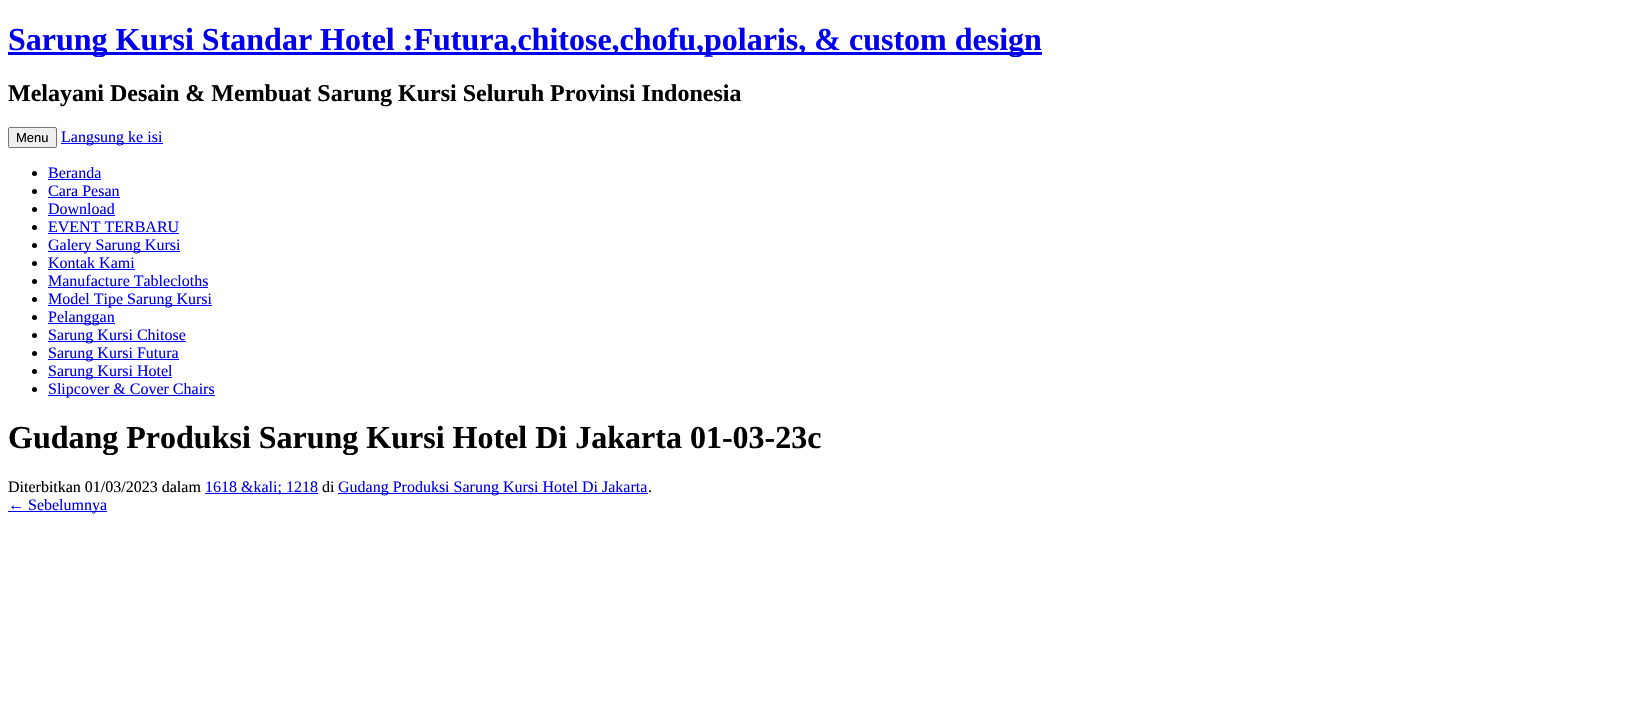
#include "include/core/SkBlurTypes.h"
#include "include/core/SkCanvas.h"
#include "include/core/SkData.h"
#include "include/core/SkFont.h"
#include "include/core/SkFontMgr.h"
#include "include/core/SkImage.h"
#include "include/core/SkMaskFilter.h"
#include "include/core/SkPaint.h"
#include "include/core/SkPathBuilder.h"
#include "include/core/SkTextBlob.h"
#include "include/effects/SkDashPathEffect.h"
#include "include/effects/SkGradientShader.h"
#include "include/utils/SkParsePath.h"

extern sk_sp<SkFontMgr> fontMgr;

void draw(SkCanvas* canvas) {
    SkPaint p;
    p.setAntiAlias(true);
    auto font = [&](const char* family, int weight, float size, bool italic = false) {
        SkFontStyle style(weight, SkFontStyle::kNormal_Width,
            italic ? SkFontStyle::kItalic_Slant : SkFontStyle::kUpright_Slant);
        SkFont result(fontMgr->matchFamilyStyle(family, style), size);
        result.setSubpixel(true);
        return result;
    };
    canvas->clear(0xFFFFFFFF);
    p.setColor(0xFF0000EE);
    canvas->drawRect(SkRect::MakeLTRB(8, 52, 1042, 55), p);
    auto font1 = font("Liberation Serif", 700, 32);
    canvas->drawString("Sarung Kursi Standar Hotel :Futura,chitose,chofu,polaris, & custom design", 8, 50, font1, p);
    auto font2 = font("Liberation Serif", 700, 24);
    p.setColor(0xFF000000);
    canvas->drawString("Melayani Desain & Membuat Sarung Kursi Seluruh Provinsi Indonesia", 8, 101, font2, p);
    p.setColor(0xFFEFEFEF);
    canvas->drawRoundRect(SkRect::MakeLTRB(8.5f, 127.5f, 56.5f, 147.5f), 1.5f, 1.5f, p);
    p.setStyle(SkPaint::kStroke_Style);
    p.setStrokeWidth(1);
    p.setColor(0xFF767676);
    canvas->drawRoundRect(SkRect::MakeLTRB(8.5f, 127.5f, 56.5f, 147.5f), 1.5f, 1.5f, p);
    auto font3 = font("Liberation Sans", 400, 13);
    p.setStyle(SkPaint::kFill_Style);
    p.setColor(0xFF000000);
    canvas->drawString("Menu", 16, 142, font3, p);
    p.setColor(0xFF0000EE);
    canvas->drawRect(SkRect::MakeLTRB(61, 143, 163, 144), p);
    auto font4 = font("Liberation Serif", 400, 16);
    canvas->drawString("Langsung ke isi", 61, 142, font4, p);
    p.setColor(0xFF000000);
    canvas->drawCircle(34.5f, 173.5f, 2.5f, p);
    p.setColor(0xFF0000EE);
    canvas->drawString("Beranda", 48, 178, font4, p);
    canvas->drawRect(SkRect::MakeLTRB(48, 179, 101, 180), p);
    p.setColor(0xFF000000);
    canvas->drawCircle(34.5f, 191.5f, 2.5f, p);
    p.setColor(0xFF0000EE);
    canvas->drawString("Cara Pesan", 48, 196, font4, p);
    canvas->drawRect(SkRect::MakeLTRB(48, 197, 120, 198), p);
    p.setColor(0xFF000000);
    canvas->drawCircle(34.5f, 209.5f, 2.5f, p);
    p.setColor(0xFF0000EE);
    canvas->drawString("Download", 48, 214, font4, p);
    canvas->drawRect(SkRect::MakeLTRB(48, 215, 115, 216), p);
    p.setColor(0xFF000000);
    canvas->drawCircle(34.5f, 227.5f, 2.5f, p);
    p.setColor(0xFF0000EE);
    canvas->drawString("EVENT TERBARU", 48, 232, font4, p);
    canvas->drawRect(SkRect::MakeLTRB(48, 233, 179, 234), p);
    p.setColor(0xFF000000);
    canvas->drawCircle(34.5f, 245.5f, 2.5f, p);
    p.setColor(0xFF0000EE);
    canvas->drawRect(SkRect::MakeLTRB(48, 251, 180, 252), p);
    canvas->drawString("Galery Sarung Kursi", 48, 250, font4, p);
    p.setColor(0xFF000000);
    canvas->drawCircle(34.5f, 263.5f, 2.5f, p);
    p.setColor(0xFF0000EE);
    canvas->drawString("Kontak Kami", 48, 268, font4, p);
    canvas->drawRect(SkRect::MakeLTRB(48, 269, 135, 270), p);
    p.setColor(0xFF000000);
    canvas->drawCircle(34.5f, 281.5f, 2.5f, p);
    p.setColor(0xFF0000EE);
    canvas->drawString("Manufacture Tablecloths", 48, 286, font4, p);
    canvas->drawRect(SkRect::MakeLTRB(48, 287, 208, 288), p);
    p.setColor(0xFF000000);
    canvas->drawCircle(34.5f, 299.5f, 2.5f, p);
    p.setColor(0xFF0000EE);
    canvas->drawRect(SkRect::MakeLTRB(48, 305, 212, 306), p);
    canvas->drawString("Model Tipe Sarung Kursi", 48, 304, font4, p);
    p.setColor(0xFF000000);
    canvas->drawCircle(34.5f, 317.5f, 2.5f, p);
    p.setColor(0xFF0000EE);
    canvas->drawRect(SkRect::MakeLTRB(48, 323, 115, 324), p);
    canvas->drawString("Pelanggan", 48, 322, font4, p);
    p.setColor(0xFF000000);
    canvas->drawCircle(34.5f, 335.5f, 2.5f, p);
    p.setColor(0xFF0000EE);
    canvas->drawRect(SkRect::MakeLTRB(48, 341, 186, 342), p);
    canvas->drawString("Sarung Kursi Chitose", 48, 340, font4, p);
    p.setColor(0xFF000000);
    canvas->drawCircle(34.5f, 353.5f, 2.5f, p);
    p.setColor(0xFF0000EE);
    canvas->drawRect(SkRect::MakeLTRB(48, 359, 179, 360), p);
    canvas->drawString("Sarung Kursi Futura", 48, 358, font4, p);
    p.setColor(0xFF000000);
    canvas->drawCircle(34.5f, 371.5f, 2.5f, p);
    p.setColor(0xFF0000EE);
    canvas->drawRect(SkRect::MakeLTRB(48, 377, 172, 378), p);
    canvas->drawString("Sarung Kursi Hotel", 48, 376, font4, p);
    p.setColor(0xFF000000);
    canvas->drawCircle(34.5f, 389.5f, 2.5f, p);
    p.setColor(0xFF0000EE);
    canvas->drawRect(SkRect::MakeLTRB(48, 395, 215, 396), p);
    canvas->drawString("Slipcover & Cover Chairs", 48, 394, font4, p);
    p.setColor(0xFF000000);
    canvas->drawString("Gudang Produksi Sarung Kursi Hotel Di Jakarta 01-03-23c", 8, 448, font1, p);
    canvas->drawString("Diterbitkan 01/03/2023 dalam", 8, 492, font4, p);
    p.setColor(0xFF0000EE);
    canvas->drawRect(SkRect::MakeLTRB(205, 493, 318, 494), p);
    canvas->drawString("1618 &kali; 1218", 205, 492, font4, p);
    p.setColor(0xFF000000);
    canvas->drawString("di", 322, 492, font4, p);
    p.setColor(0xFF0000EE);
    canvas->drawRect(SkRect::MakeLTRB(338, 493, 648, 494), p);
    canvas->drawString("Gudang Produksi Sarung Kursi Hotel Di Jakarta", 338, 492, font4, p);
    p.setColor(0xFF000000);
    canvas->drawString(".", 648, 492, font4, p);
    p.setColor(0xFF0000EE);
    canvas->drawRect(SkRect::MakeLTRB(8, 511, 107, 512), p);
    canvas->drawString("← Sebelumnya", 8, 510, font4, p);
}
